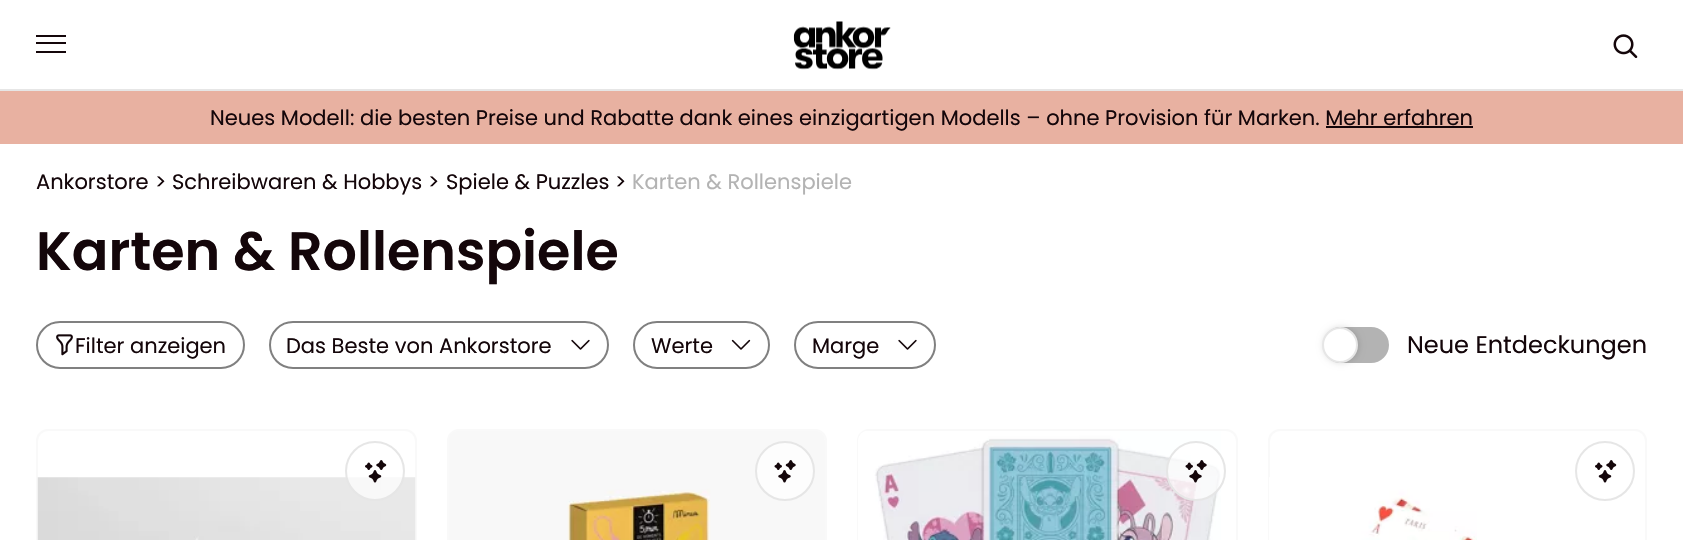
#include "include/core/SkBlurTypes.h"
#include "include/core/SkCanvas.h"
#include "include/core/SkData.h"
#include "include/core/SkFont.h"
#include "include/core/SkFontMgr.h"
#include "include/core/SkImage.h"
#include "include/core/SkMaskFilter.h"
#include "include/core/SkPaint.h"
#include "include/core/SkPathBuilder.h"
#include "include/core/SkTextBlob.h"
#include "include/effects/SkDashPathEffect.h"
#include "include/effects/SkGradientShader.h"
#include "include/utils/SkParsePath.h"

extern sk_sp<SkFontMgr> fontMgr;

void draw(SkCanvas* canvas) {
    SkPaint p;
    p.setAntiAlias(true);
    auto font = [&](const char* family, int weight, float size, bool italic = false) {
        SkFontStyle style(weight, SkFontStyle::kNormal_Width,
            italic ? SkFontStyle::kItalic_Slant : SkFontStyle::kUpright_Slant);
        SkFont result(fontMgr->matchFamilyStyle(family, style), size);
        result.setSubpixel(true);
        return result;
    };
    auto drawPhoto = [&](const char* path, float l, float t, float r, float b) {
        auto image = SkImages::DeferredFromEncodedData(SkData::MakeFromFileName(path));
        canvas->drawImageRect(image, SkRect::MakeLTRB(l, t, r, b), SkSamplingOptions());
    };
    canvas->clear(0xFFFFFFFF);
    {
        const struct { float l, t, r, b; SkColor color; } items[] = {
            {0, 89, 1683, 91, 0xFFE6E6E6},
            {36, 35, 66, 37, 0xFF14060A},
            {36, 42, 66, 44, 0xFF14060A},
            {36, 51, 66, 53, 0xFF14060A},
        };
        for (auto [l, t, r, b, color] : items) {
            p.setColor(color);
            canvas->drawRect(SkRect::MakeLTRB(l, t, r, b), p);
        }
    }
    drawPhoto("media/1.png", 793, 21, 891, 70);
    drawPhoto("media/2.png", 1613, 34, 1638, 58);
    p.setColor(0xFFE8B1A1);
    canvas->drawRect(SkRect::MakeLTRB(0, 91, 1683, 144), p);
    auto font1 = font("Poppins", 400, 21);
    p.setColor(0xFF14060A);
    canvas->drawString("Neues Modell: die besten Preise und Rabatte dank eines einzigartigen Modells – ohne Provision für Marken. Mehr erfahren", 210, 125, font1, p);
    canvas->drawRect(SkRect::MakeLTRB(1326, 126, 1473, 128), p);
    {
        const struct { const char* s; float x, y; } items[] = {
            {"Ankorstore", 36, 189},
            {">", 155, 189},
            {"Schreibwaren & Hobbys", 172, 189},
            {">", 428, 189},
            {"Spiele & Puzzles", 446, 189},
            {">", 615, 189},
        };
        for (auto [s, x, y] : items) {
            canvas->drawString(s, x, y, font1, p);
        }
    }
    p.setColor(0xFFB3B3B3);
    canvas->drawString("Karten & Rollenspiele", 632, 189, font1, p);
    auto font2 = font("Poppins", 600, 54);
    p.setColor(0xFF14060A);
    canvas->drawString("Karten & Rollenspiele", 36, 270, font2, p);
    p.setStyle(SkPaint::kStroke_Style);
    p.setStrokeWidth(2);
    p.setColor(0xFF808080);
    canvas->drawRoundRect(SkRect::MakeLTRB(37, 322, 244, 368), 23, 23, p);
    drawPhoto("media/3.png", 56, 334, 73, 356);
    p.setStyle(SkPaint::kFill_Style);
    p.setColor(0xFF14060A);
    canvas->drawString("Filter anzeigen", 75, 353, font1, p);
    p.setStyle(SkPaint::kStroke_Style);
    p.setColor(0xFF808080);
    canvas->drawRoundRect(SkRect::MakeLTRB(270, 322, 608, 368), 23, 23, p);
    p.setStyle(SkPaint::kFill_Style);
    p.setColor(0xFF14060A);
    canvas->drawString("Das Beste von Ankorstore", 286, 353, font1, p);
    drawPhoto("media/4.png", 571, 339, 590, 350);
    p.setStyle(SkPaint::kStroke_Style);
    p.setColor(0xFF808080);
    canvas->drawRoundRect(SkRect::MakeLTRB(634, 322, 769, 368), 23, 23, p);
    p.setStyle(SkPaint::kFill_Style);
    p.setColor(0xFF14060A);
    canvas->drawString("Werte", 651, 353, font1, p);
    drawPhoto("media/5.png", 731, 339, 751, 350);
    p.setStyle(SkPaint::kStroke_Style);
    p.setColor(0xFF808080);
    canvas->drawRoundRect(SkRect::MakeLTRB(795, 322, 935, 368), 23, 23, p);
    p.setStyle(SkPaint::kFill_Style);
    p.setColor(0xFF14060A);
    canvas->drawString("Marge", 812, 353, font1, p);
    drawPhoto("media/4.png", 898, 339, 917, 350);
    p.setColor(0xFFB3B3B3);
    canvas->drawRoundRect(SkRect::MakeLTRB(1323, 327, 1389, 363), 18, 18, p);
    p.setColor(0x21000000);
    p.setMaskFilter(SkMaskFilter::MakeBlur(kNormal_SkBlurStyle, 3));
    canvas->drawRoundRect(SkRect::MakeLTRB(1323, 327, 1359, 363), 18, 18, p);
    p.setMaskFilter(nullptr);
    p.setColor(0xFFFFFFFF);
    canvas->drawCircle(1340, 345, 17, p);
    p.setStyle(SkPaint::kStroke_Style);
    p.setColor(0xFFE6E6E6);
    canvas->drawCircle(1340, 345, 17, p);
    auto font3 = font("Poppins", 400, 24);
    p.setStyle(SkPaint::kFill_Style);
    p.setColor(0xFF14060A);
    canvas->drawString("Neue Entdeckungen", 1407, 353, font3, p);
    p.setStyle(SkPaint::kStroke_Style);
    p.setColor(0xFFF9F9F9);
    canvas->drawRoundRect(SkRect::MakeLTRB(37, 430, 416, 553), 11, 11, p);
    drawPhoto("media/6.png", 37, 477, 416, 540);
    p.setStyle(SkPaint::kFill_Style);
    p.setColor(0xB3FFFFFF);
    canvas->drawCircle(375, 471, 29, p);
    p.setStyle(SkPaint::kStroke_Style);
    p.setColor(0xFFE6E6E6);
    canvas->drawCircle(375, 471, 29, p);
    drawPhoto("media/7.png", 365, 460, 387, 483);
    p.setColor(0xFFF9F9F9);
    canvas->drawRoundRect(SkRect::MakeLTRB(448, 430, 826, 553), 11, 11, p);
    drawPhoto("media/8.png", 449, 431, 825, 540);
    p.setStyle(SkPaint::kFill_Style);
    p.setColor(0xFFFDFDFD);
    canvas->drawCircle(785, 471, 29, p);
    p.setStyle(SkPaint::kStroke_Style);
    p.setColor(0xFFE6E6E6);
    canvas->drawCircle(785, 471, 29, p);
    drawPhoto("media/9.png", 774, 460, 796, 483);
    p.setColor(0xFFF9F9F9);
    canvas->drawRoundRect(SkRect::MakeLTRB(858, 430, 1237, 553), 11, 11, p);
    drawPhoto("media/10.png", 858, 431, 1221, 540);
    p.setStyle(SkPaint::kFill_Style);
    p.setColor(0xB3FFFFFF);
    canvas->drawCircle(1196, 471, 29, p);
    p.setStyle(SkPaint::kStroke_Style);
    p.setColor(0xFFE6E6E6);
    canvas->drawCircle(1196, 471, 29, p);
    drawPhoto("media/11.png", 1185, 460, 1207, 483);
    p.setColor(0xFFF9F9F9);
    canvas->drawRoundRect(SkRect::MakeLTRB(1269, 430, 1646, 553), 11, 11, p);
    drawPhoto("media/12.png", 1269, 477, 1477, 540);
    p.setColor(0xFFE6E6E6);
    canvas->drawCircle(1605, 471, 29, p);
    drawPhoto("media/13.png", 1595, 460, 1617, 483);
}
